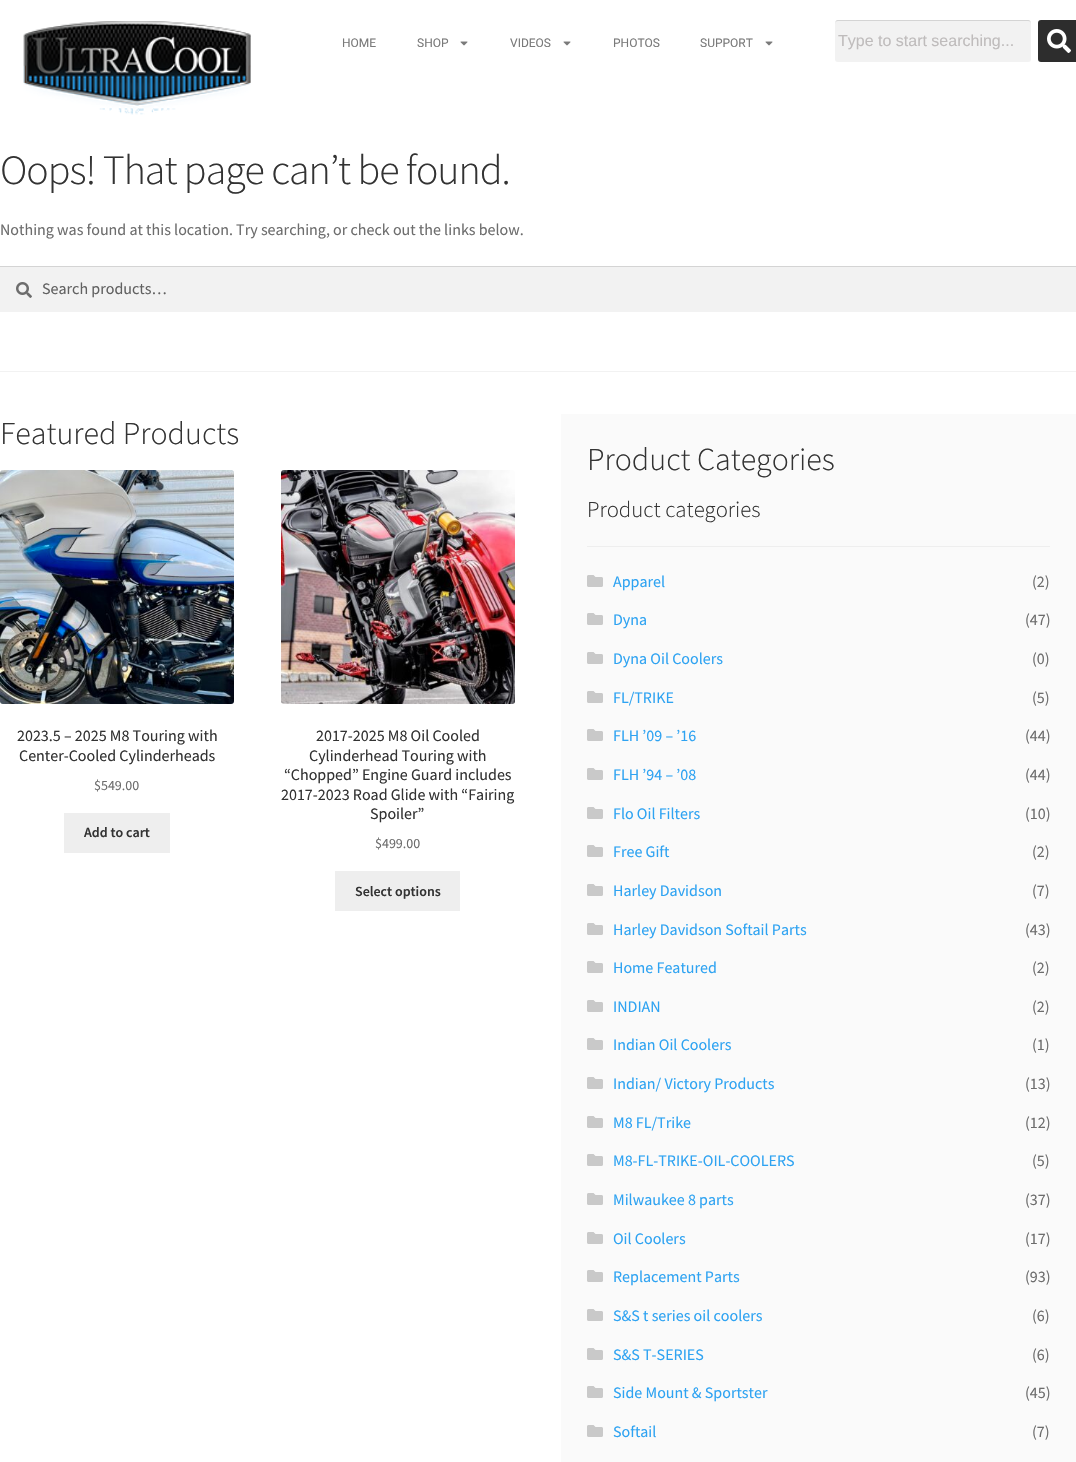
#include "include/core/SkBlurTypes.h"
#include "include/core/SkCanvas.h"
#include "include/core/SkData.h"
#include "include/core/SkFont.h"
#include "include/core/SkFontMgr.h"
#include "include/core/SkImage.h"
#include "include/core/SkMaskFilter.h"
#include "include/core/SkPaint.h"
#include "include/core/SkPathBuilder.h"
#include "include/core/SkTextBlob.h"
#include "include/effects/SkDashPathEffect.h"
#include "include/effects/SkGradientShader.h"
#include "include/utils/SkParsePath.h"

extern sk_sp<SkFontMgr> fontMgr;

void draw(SkCanvas* canvas) {
    SkPaint p;
    p.setAntiAlias(true);
    auto font = [&](const char* family, int weight, float size, bool italic = false) {
        SkFontStyle style(weight, SkFontStyle::kNormal_Width,
            italic ? SkFontStyle::kItalic_Slant : SkFontStyle::kUpright_Slant);
        SkFont result(fontMgr->matchFamilyStyle(family, style), size);
        result.setSubpixel(true);
        return result;
    };
    auto drawTracked = [&](const char* s, float x, float y, const SkFont& font, const SkPaint& ink, float letter, float word) {
        std::vector<SkGlyphID> glyphs(font.countText(s, strlen(s), SkTextEncoding::kUTF8));
        std::vector<float> xs(glyphs.size());
        font.textToGlyphs(s, strlen(s), SkTextEncoding::kUTF8, glyphs);
        font.getXPos(glyphs, xs, x);
        float extra = 0;
        for (size_t i = 0; i < glyphs.size(); i++) {
            xs[i] += extra;
            extra += letter + word * (glyphs[i] == font.unicharToGlyph(' '));
        }
        canvas->drawTextBlob(SkTextBlob::MakeFromPosHGlyphs(glyphs, xs, y, font), 0, 0, ink);
    };
    auto drawPhoto = [&](const char* path, float l, float t, float r, float b) {
        auto image = SkImages::DeferredFromEncodedData(SkData::MakeFromFileName(path));
        canvas->drawImageRect(image, SkRect::MakeLTRB(l, t, r, b), SkSamplingOptions());
    };
    canvas->clear(0xFFFFFFFF);
    drawPhoto("media/1.png", 23, 21, 251, 115);
    auto font1 = font("Roboto", 400, 12);
    p.setColor(0xFF7A7A7A);
    canvas->drawString("HOME", 342, 47, font1, p);
    canvas->drawString("SHOP", 417, 47, font1, p);
    drawPhoto("media/2.png", 460, 41, 468, 46);
    canvas->drawString("VIDEOS", 510, 47, font1, p);
    drawPhoto("media/2.png", 563, 41, 571, 46);
    canvas->drawString("PHOTOS", 613, 47, font1, p);
    canvas->drawString("SUPPORT", 700, 47, font1, p);
    drawPhoto("media/2.png", 765, 41, 773, 46);
    p.setColor(0xFFF2F2F2);
    canvas->drawRoundRect(SkRect::MakeLTRB(835, 20, 1031, 62), 3, 3, p);
    p.setColor(0xFFD4D4D4);
    canvas->drawPath(SkPathBuilder().moveTo(838, 21).lineTo(1028, 21).cubicTo(1030, 21, 1031, 22, 1031, 24).cubicTo(1031, 22, 1030, 20, 1028, 20).lineTo(838, 20).cubicTo(836, 20, 835, 22, 835, 24).cubicTo(835, 22, 836, 21, 838, 21).close().detach(), p);
    auto font2 = font("Liberation Sans", 400, 16);
    p.setColor(0xFFBFBCBC);
    canvas->drawString("Type to start searching...", 838, 46, font2, p);
    p.setColor(0xFF2D2D2D);
    canvas->drawRoundRect(SkRect::MakeLTRB(1038, 20, 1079, 62), 3, 3, p);
    drawPhoto("media/3.png", 1047, 29, 1071, 53);
    auto font3 = font("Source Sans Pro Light", 300, 41.9f);
    p.setColor(0xFF333333);
    drawTracked("Oops! That page can’t be found.", 0, 184, font3, p, -1, 0);
    auto font4 = font("Source Sans Pro", 400, 16);
    p.setColor(0xFF6D6D6D);
    canvas->drawString("Nothing was found at this location. Try searching, or check out the links below.", 0, 235, font4, p);
    p.setColor(0xFFF2F2F2);
    canvas->drawRect(SkRect::MakeLTRB(0, 267, 1076, 312), p);
    drawPhoto("media/4.png", 16, 282, 32, 298);
    p.setColor(0xFFD4D4D4);
    canvas->drawRect(SkRect::MakeLTRB(0, 266, 1076, 267), p);
    p.setColor(0xFF616161);
    canvas->drawString("Search products…", 42, 294, font4, p);
    p.setColor(0xFFF2F2F2);
    canvas->drawRect(SkRect::MakeLTRB(0, 371, 1076, 372), p);
    auto font5 = font("Source Sans Pro Light", 300, 32);
    p.setColor(0xFF333333);
    canvas->drawString("Featured Products", 0, 444, font5, p);
    drawPhoto("media/5.png", 0, 470, 234, 704);
    canvas->drawString("2023.5 – 2025 M8 Touring with", 17, 741, font4, p);
    canvas->drawString("Center-Cooled Cylinderheads", 19, 761, font4, p);
    auto font6 = font("Source Sans Pro", 400, 14);
    p.setColor(0xFF6D6D6D);
    canvas->drawString("$549.00", 94, 790, font6, p);
    p.setColor(0xFFEEEEEE);
    canvas->drawRect(SkRect::MakeLTRB(64, 813, 170, 853), p);
    auto font7 = font("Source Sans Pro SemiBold", 600, 14);
    p.setColor(0xFF333333);
    canvas->drawString("Add to cart", 84, 837, font7, p);
    drawPhoto("media/6.png", 281, 470, 515, 704);
    {
        const struct { const char* s; float x, y; } items[] = {
            {"2017-2025 M8 Oil Cooled", 316, 741},
            {"Cylinderhead Touring with", 309, 761},
            {"“Chopped” Engine Guard includes", 284, 780},
            {"2017-2023 Road Glide with “Fairing", 281, 800},
            {"Spoiler”", 370, 819},
        };
        for (auto [s, x, y] : items) {
            canvas->drawString(s, x, y, font4, p);
        }
    }
    p.setColor(0xFF6D6D6D);
    canvas->drawString("$499.00", 375, 848, font6, p);
    p.setColor(0xFFEEEEEE);
    canvas->drawRect(SkRect::MakeLTRB(335, 871, 460, 911), p);
    p.setColor(0xFF333333);
    canvas->drawString("Select options", 355, 896, font7, p);
    p.setColor(0xFFFAFAFA);
    canvas->drawRect(SkRect::MakeLTRB(561, 414, 1076, 1462), p);
    p.setColor(0xFF333333);
    canvas->drawString("Product Categories", 587, 470, font5, p);
    p.setColor(0xFFEEEEEE);
    canvas->drawRect(SkRect::MakeLTRB(587, 546, 1050, 547), p);
    auto font8 = font("Source Sans Pro Light", 300, 22.75f);
    p.setColor(0xFF333333);
    canvas->drawString("Product categories", 587, 517, font8, p);
    drawPhoto("media/7.png", 587, 575, 603, 587);
    p.setColor(0xFF2EA3F2);
    canvas->drawString("Apparel", 613, 587, font4, p);
    p.setColor(0xFF6D6D6D);
    canvas->drawString("(2)", 1032, 587, font4, p);
    drawPhoto("media/7.png", 587, 613, 603, 625);
    p.setColor(0xFF2EA3F2);
    canvas->drawString("Dyna", 613, 625, font4, p);
    p.setColor(0xFF6D6D6D);
    canvas->drawString("(47)", 1025, 625, font4, p);
    drawPhoto("media/7.png", 587, 652, 603, 664);
    p.setColor(0xFF2EA3F2);
    canvas->drawString("Dyna Oil Coolers", 613, 664, font4, p);
    p.setColor(0xFF6D6D6D);
    canvas->drawString("(0)", 1032, 664, font4, p);
    drawPhoto("media/7.png", 587, 691, 603, 703);
    p.setColor(0xFF2EA3F2);
    canvas->drawString("FL/TRIKE", 613, 703, font4, p);
    p.setColor(0xFF6D6D6D);
    canvas->drawString("(5)", 1032, 703, font4, p);
    drawPhoto("media/7.png", 587, 729, 603, 741);
    p.setColor(0xFF2EA3F2);
    canvas->drawString("FLH ’09 – ’16", 613, 741, font4, p);
    p.setColor(0xFF6D6D6D);
    canvas->drawString("(44)", 1025, 741, font4, p);
    drawPhoto("media/7.png", 587, 768, 603, 780);
    p.setColor(0xFF2EA3F2);
    canvas->drawString("FLH ’94 – ’08", 613, 780, font4, p);
    p.setColor(0xFF6D6D6D);
    canvas->drawString("(44)", 1025, 780, font4, p);
    drawPhoto("media/7.png", 587, 807, 603, 819);
    p.setColor(0xFF2EA3F2);
    canvas->drawString("Flo Oil Filters", 613, 819, font4, p);
    p.setColor(0xFF6D6D6D);
    canvas->drawString("(10)", 1025, 819, font4, p);
    drawPhoto("media/7.png", 587, 845, 603, 857);
    p.setColor(0xFF2EA3F2);
    canvas->drawString("Free Gift", 613, 857, font4, p);
    p.setColor(0xFF6D6D6D);
    canvas->drawString("(2)", 1032, 857, font4, p);
    drawPhoto("media/7.png", 587, 884, 603, 896);
    p.setColor(0xFF2EA3F2);
    canvas->drawString("Harley Davidson", 613, 896, font4, p);
    p.setColor(0xFF6D6D6D);
    canvas->drawString("(7)", 1032, 896, font4, p);
    drawPhoto("media/7.png", 587, 923, 603, 935);
    p.setColor(0xFF2EA3F2);
    canvas->drawString("Harley Davidson Softail Parts", 613, 935, font4, p);
    p.setColor(0xFF6D6D6D);
    canvas->drawString("(43)", 1025, 935, font4, p);
    drawPhoto("media/7.png", 587, 961, 603, 973);
    p.setColor(0xFF2EA3F2);
    canvas->drawString("Home Featured", 613, 973, font4, p);
    p.setColor(0xFF6D6D6D);
    canvas->drawString("(2)", 1032, 973, font4, p);
    drawPhoto("media/7.png", 587, 1000, 603, 1012);
    p.setColor(0xFF2EA3F2);
    canvas->drawString("INDIAN", 613, 1012, font4, p);
    p.setColor(0xFF6D6D6D);
    canvas->drawString("(2)", 1032, 1012, font4, p);
    drawPhoto("media/7.png", 587, 1038, 603, 1050);
    p.setColor(0xFF2EA3F2);
    canvas->drawString("Indian Oil Coolers", 613, 1050, font4, p);
    p.setColor(0xFF6D6D6D);
    canvas->drawString("(1)", 1032, 1050, font4, p);
    drawPhoto("media/7.png", 587, 1077, 603, 1089);
    p.setColor(0xFF2EA3F2);
    canvas->drawString("Indian/ Victory Products", 613, 1089, font4, p);
    p.setColor(0xFF6D6D6D);
    canvas->drawString("(13)", 1025, 1089, font4, p);
    drawPhoto("media/7.png", 587, 1116, 603, 1128);
    p.setColor(0xFF2EA3F2);
    canvas->drawString("M8 FL/Trike", 613, 1128, font4, p);
    p.setColor(0xFF6D6D6D);
    canvas->drawString("(12)", 1025, 1128, font4, p);
    drawPhoto("media/7.png", 587, 1154, 603, 1166);
    p.setColor(0xFF2EA3F2);
    canvas->drawString("M8-FL-TRIKE-OIL-COOLERS", 613, 1166, font4, p);
    p.setColor(0xFF6D6D6D);
    canvas->drawString("(5)", 1032, 1166, font4, p);
    drawPhoto("media/7.png", 587, 1193, 603, 1205);
    p.setColor(0xFF2EA3F2);
    canvas->drawString("Milwaukee 8 parts", 613, 1205, font4, p);
    p.setColor(0xFF6D6D6D);
    canvas->drawString("(37)", 1025, 1205, font4, p);
    drawPhoto("media/7.png", 587, 1232, 603, 1244);
    p.setColor(0xFF2EA3F2);
    canvas->drawString("Oil Coolers", 613, 1244, font4, p);
    p.setColor(0xFF6D6D6D);
    canvas->drawString("(17)", 1025, 1244, font4, p);
    drawPhoto("media/7.png", 587, 1270, 603, 1282);
    p.setColor(0xFF2EA3F2);
    canvas->drawString("Replacement Parts", 613, 1282, font4, p);
    p.setColor(0xFF6D6D6D);
    canvas->drawString("(93)", 1025, 1282, font4, p);
    drawPhoto("media/7.png", 587, 1309, 603, 1321);
    p.setColor(0xFF2EA3F2);
    canvas->drawString("S&S t series oil coolers", 613, 1321, font4, p);
    p.setColor(0xFF6D6D6D);
    canvas->drawString("(6)", 1032, 1321, font4, p);
    drawPhoto("media/7.png", 587, 1348, 603, 1360);
    p.setColor(0xFF2EA3F2);
    canvas->drawString("S&S T-SERIES", 613, 1360, font4, p);
    p.setColor(0xFF6D6D6D);
    canvas->drawString("(6)", 1032, 1360, font4, p);
    drawPhoto("media/7.png", 587, 1386, 603, 1398);
    p.setColor(0xFF2EA3F2);
    canvas->drawString("Side Mount & Sportster", 613, 1398, font4, p);
    p.setColor(0xFF6D6D6D);
    canvas->drawString("(45)", 1025, 1398, font4, p);
    drawPhoto("media/7.png", 587, 1425, 603, 1437);
    p.setColor(0xFF2EA3F2);
    canvas->drawString("Softail", 613, 1437, font4, p);
    p.setColor(0xFF6D6D6D);
    canvas->drawString("(7)", 1032, 1437, font4, p);
}
